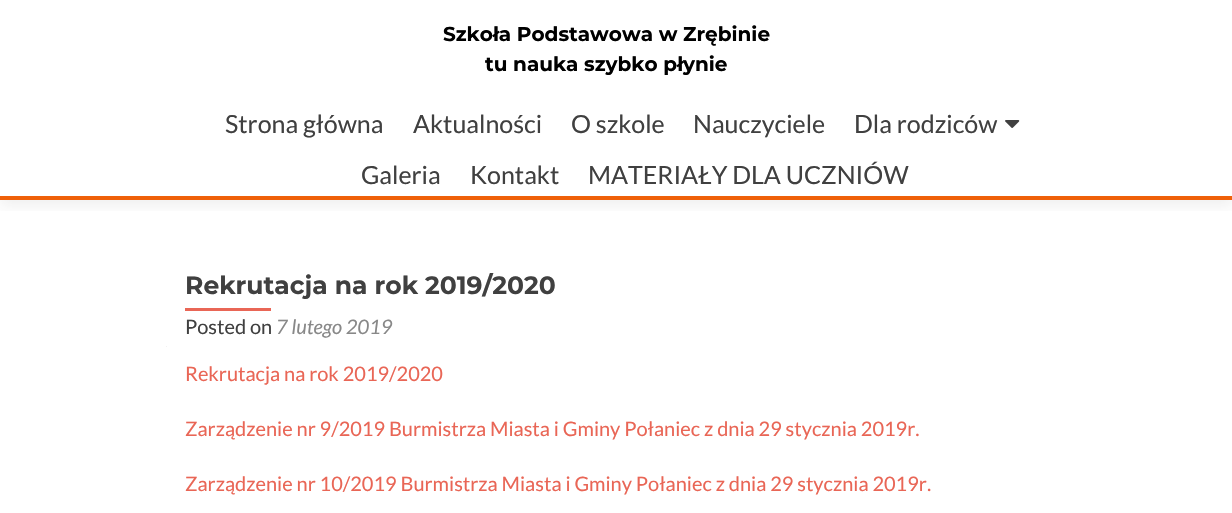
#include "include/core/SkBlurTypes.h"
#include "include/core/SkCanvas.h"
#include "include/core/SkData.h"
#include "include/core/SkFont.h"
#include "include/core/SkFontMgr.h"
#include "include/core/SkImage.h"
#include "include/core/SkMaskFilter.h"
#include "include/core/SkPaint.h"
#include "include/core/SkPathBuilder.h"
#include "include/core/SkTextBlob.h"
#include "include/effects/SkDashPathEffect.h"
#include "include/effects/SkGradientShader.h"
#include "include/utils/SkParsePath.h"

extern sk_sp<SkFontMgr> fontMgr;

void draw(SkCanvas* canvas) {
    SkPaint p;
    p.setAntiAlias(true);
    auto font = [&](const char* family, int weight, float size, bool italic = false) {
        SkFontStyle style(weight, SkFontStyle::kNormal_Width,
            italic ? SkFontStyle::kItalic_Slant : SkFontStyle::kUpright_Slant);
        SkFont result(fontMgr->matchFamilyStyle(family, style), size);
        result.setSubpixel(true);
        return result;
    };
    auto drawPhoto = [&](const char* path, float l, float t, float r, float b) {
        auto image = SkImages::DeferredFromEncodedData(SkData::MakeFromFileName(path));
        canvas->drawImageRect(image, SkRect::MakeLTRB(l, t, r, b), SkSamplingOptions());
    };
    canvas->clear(0xFFFFFFFF);
    canvas->save();
    canvas->clipRect(SkRect::MakeLTRB(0, 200, 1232, 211));
    p.setColor(0x14323232);
    p.setMaskFilter(SkMaskFilter::MakeBlur(kNormal_SkBlurStyle, 7));
    canvas->drawRect(SkRect::MakeLTRB(0, 6, 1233, 206), p);
    p.setMaskFilter(nullptr);
    canvas->restore();
    p.setColor(0xFFEF6009);
    canvas->drawRect(SkRect::MakeLTRB(0, 196, 1232, 200), p);
    auto font1 = font("Montserrat", 700, 20);
    p.setColor(0xFF000000);
    canvas->drawString("Szkoła Podstawowa w Zrębinie", 443, 41, font1, p);
    canvas->drawString("tu nauka szybko płynie", 485, 71, font1, p);
    auto font2 = font("Lato", 400, 25);
    p.setColor(0xFF404040);
    {
        const struct { const char* s; float x, y; } items[] = {
            {"Strona główna", 225, 133},
            {"Aktualności", 413, 133},
            {"O szkole", 571, 133},
            {"Nauczyciele", 693, 133},
            {"Dla rodziców", 854, 133},
        };
        for (auto [s, x, y] : items) {
            canvas->drawString(s, x, y, font2, p);
        }
    }
    drawPhoto("media/1.png", 1005, 120, 1020, 128);
    {
        const struct { const char* s; float x, y; } items[] = {
            {"Galeria", 361, 184},
            {"Kontakt", 470, 184},
            {"MATERIAŁY DLA UCZNIÓW", 588, 184},
        };
        for (auto [s, x, y] : items) {
            canvas->drawString(s, x, y, font2, p);
        }
    }
    p.setColor(0xFFF2F2F2);
    canvas->drawRect(SkRect::MakeLTRB(166, 346, 167, 347), p);
    auto font3 = font("Montserrat", 700, 25);
    p.setColor(0xFF404040);
    canvas->drawString("Rekrutacja na rok 2019/2020", 185, 294, font3, p);
    p.setColor(0xFFE96656);
    canvas->drawRect(SkRect::MakeLTRB(185, 308, 271, 311), p);
    auto font4 = font("Lato", 400, 20);
    p.setColor(0xFF404040);
    canvas->drawString("Posted on", 185, 334, font4, p);
    auto font5 = font("Lato", 400, 20, true);
    p.setColor(0xFF888888);
    canvas->drawString("7 lutego 2019", 276, 334, font5, p);
    p.setColor(0xFFE96656);
    {
        const struct { const char* s; float x, y; } items[] = {
            {"Rekrutacja na rok 2019/2020", 185, 381},
            {"Zarządzenie nr 9/2019 Burmistrza Miasta i Gminy Połaniec z dnia 29 stycznia 2019r.", 185, 436},
            {"Zarządzenie nr 10/2019 Burmistrza Miasta i Gminy Połaniec z dnia 29 stycznia 2019r.", 185, 491},
        };
        for (auto [s, x, y] : items) {
            canvas->drawString(s, x, y, font4, p);
        }
    }
}
